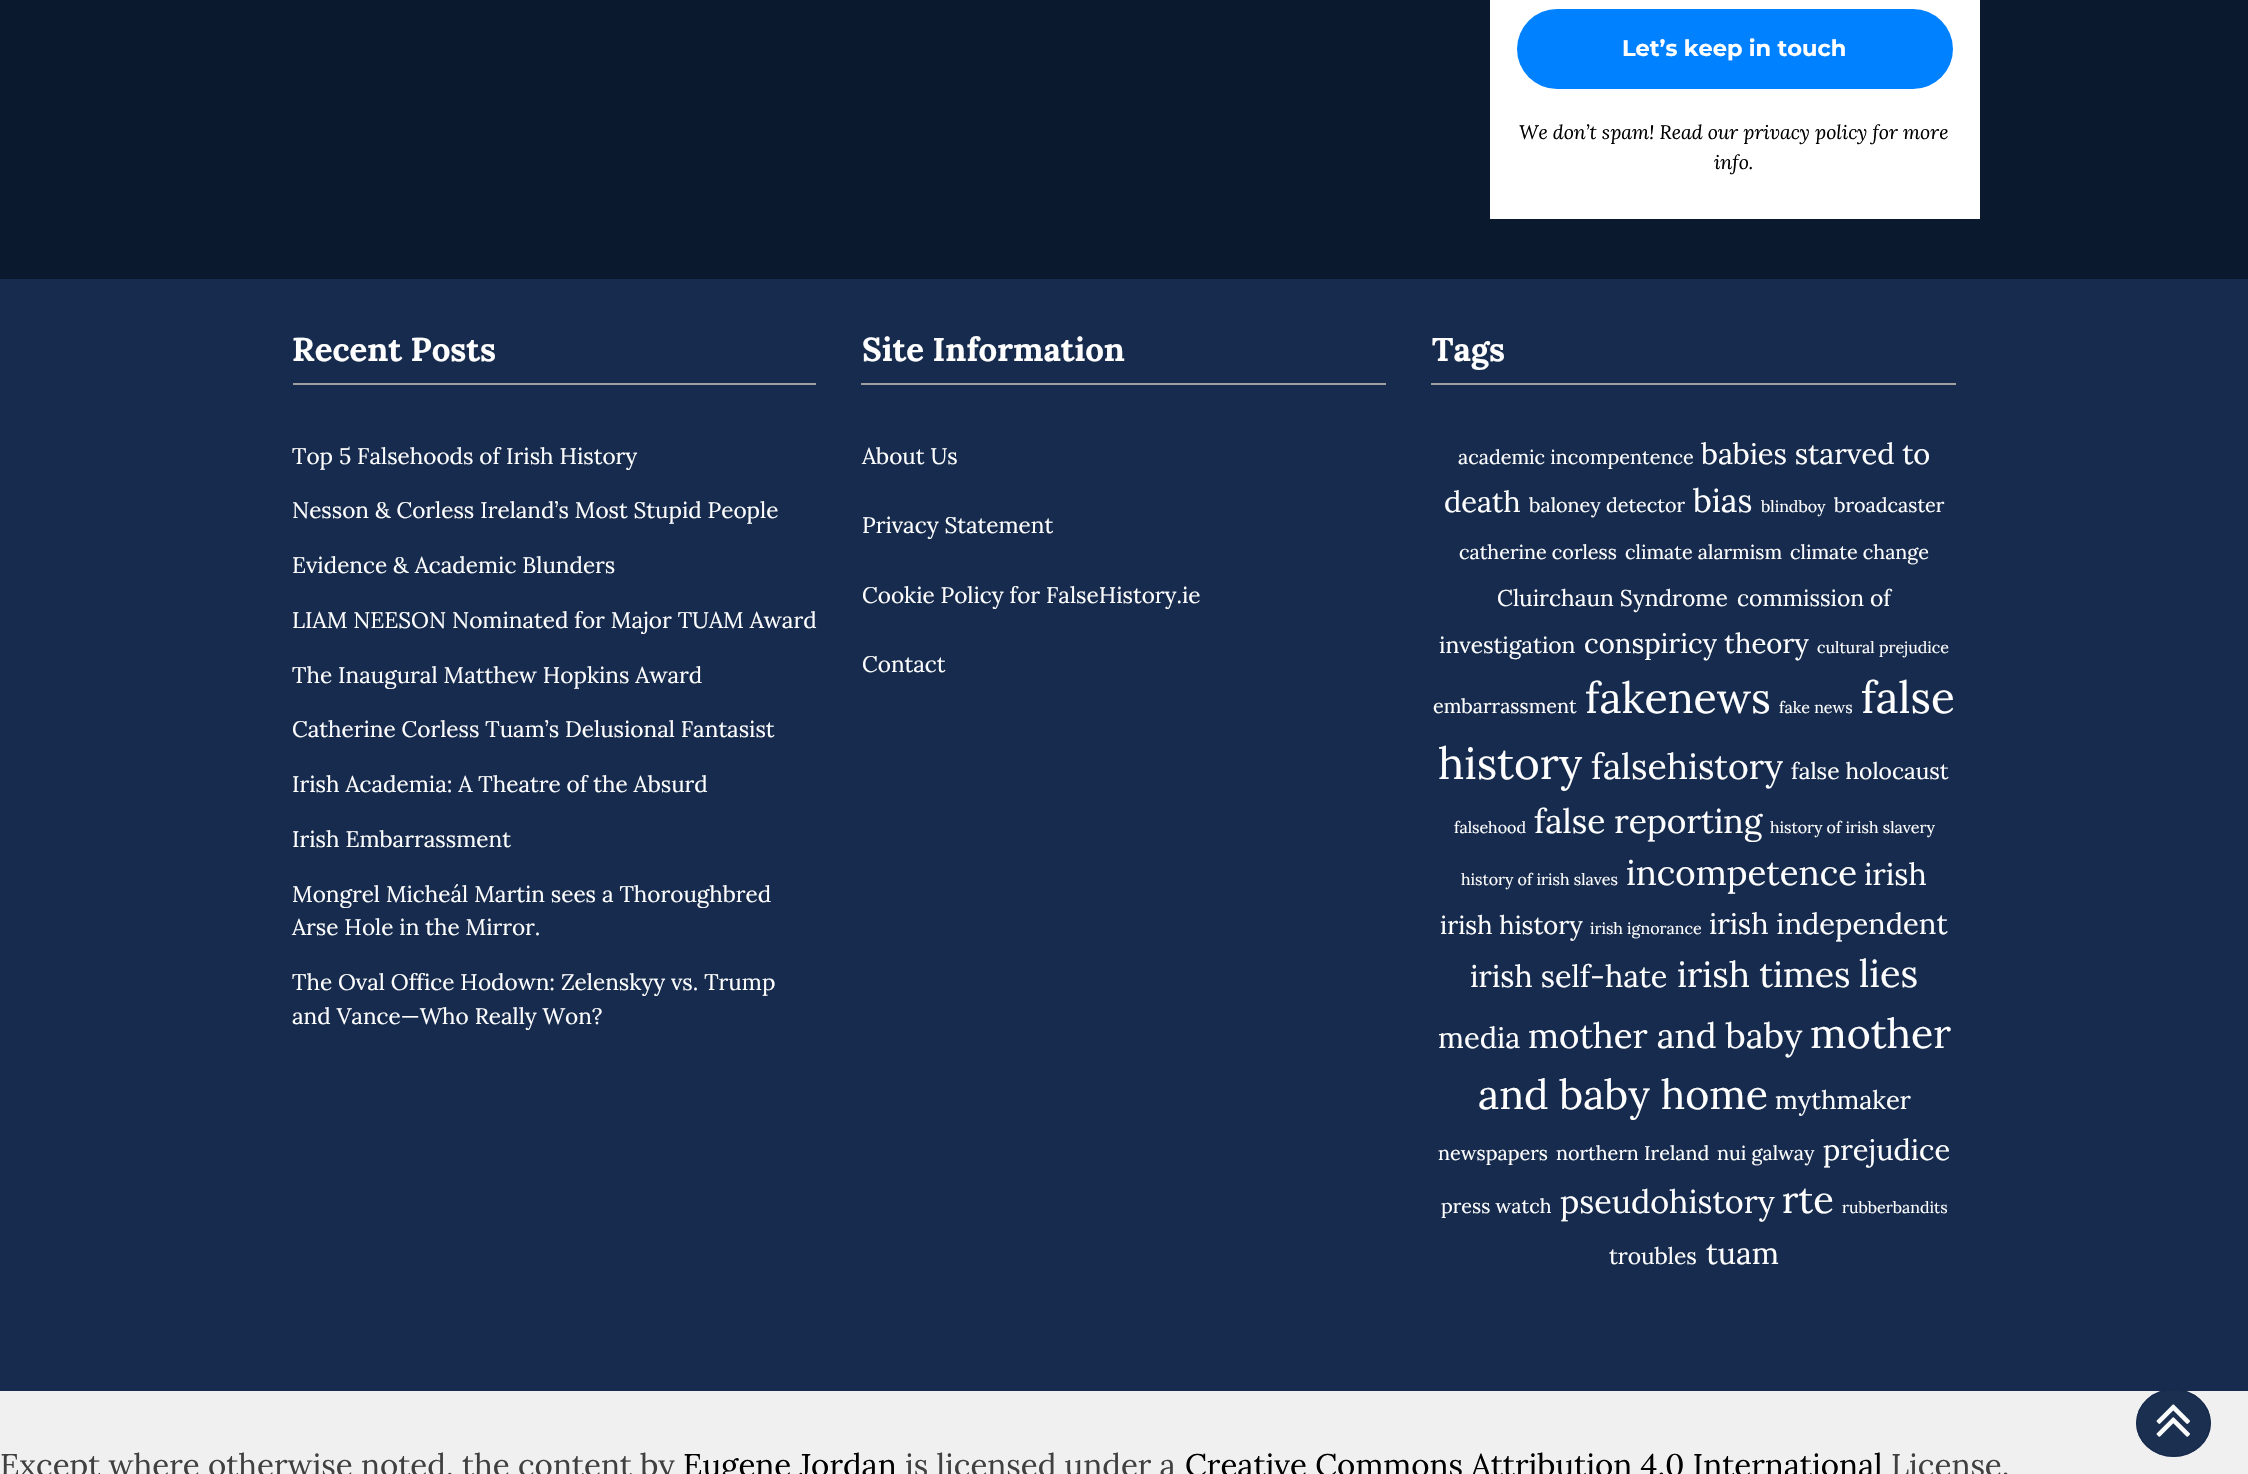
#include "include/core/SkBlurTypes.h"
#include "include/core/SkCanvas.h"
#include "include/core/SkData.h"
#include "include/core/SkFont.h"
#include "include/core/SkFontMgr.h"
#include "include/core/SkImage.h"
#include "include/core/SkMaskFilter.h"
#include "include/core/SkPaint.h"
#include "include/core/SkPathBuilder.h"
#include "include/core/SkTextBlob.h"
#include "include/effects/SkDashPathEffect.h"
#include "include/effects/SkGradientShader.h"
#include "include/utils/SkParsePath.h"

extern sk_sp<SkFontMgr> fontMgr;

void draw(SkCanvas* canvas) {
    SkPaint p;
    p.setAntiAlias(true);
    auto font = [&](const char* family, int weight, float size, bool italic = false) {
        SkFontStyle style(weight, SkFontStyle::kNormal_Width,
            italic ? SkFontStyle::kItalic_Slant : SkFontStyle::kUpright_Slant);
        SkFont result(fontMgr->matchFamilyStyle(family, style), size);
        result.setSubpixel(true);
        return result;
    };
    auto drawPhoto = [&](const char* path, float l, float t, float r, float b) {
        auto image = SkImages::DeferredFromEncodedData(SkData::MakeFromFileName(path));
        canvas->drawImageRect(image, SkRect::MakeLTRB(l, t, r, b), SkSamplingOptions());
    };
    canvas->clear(0xFFF0F0F0);
    p.setColor(0xFF0B192F);
    canvas->drawRect(SkRect::MakeLTRB(0, 0, 2248, 279), p);
    p.setColor(0xFFFFFFFF);
    canvas->drawRect(SkRect::MakeLTRB(1490, 0, 1980, 219), p);
    p.setColor(0xFF0081FF);
    canvas->drawRoundRect(SkRect::MakeLTRB(1517, 9, 1953, 89), 40, 40, p);
    auto font1 = font("Montserrat", 700, 22.5f);
    p.setColor(0xFFFFFFFF);
    canvas->drawString("Let’s keep in touch", 1622, 56, font1, p);
    auto font2 = font("Lora", 400, 19.5f, true);
    p.setColor(0xFF000000);
    canvas->drawString("We don’t spam! Read our privacy policy for more", 1519, 139, font2, p);
    canvas->drawString("info.", 1714, 169, font2, p);
    p.setColor(0xFF162B4D);
    canvas->drawRect(SkRect::MakeLTRB(0, 279, 2248, 1391), p);
    p.setColor(0xFFA0A0A0);
    canvas->drawRect(SkRect::MakeLTRB(293, 383, 816, 385), p);
    auto font3 = font("Lora", 700, 33);
    p.setColor(0xFFFFFFFF);
    canvas->drawString("Recent Posts", 292, 361, font3, p);
    auto font4 = font("Lora", 400, 22.5f);
    {
        const struct { const char* s; float x, y; } items[] = {
            {"Top 5 Falsehoods of Irish History", 292, 464},
            {"Nesson & Corless Ireland’s Most Stupid People", 292, 518},
            {"Evidence & Academic Blunders", 292, 573},
            {"LIAM NEESON Nominated for Major TUAM Award", 292, 628},
            {"The Inaugural Matthew Hopkins Award", 292, 683},
            {"Catherine Corless Tuam’s Delusional Fantasist", 292, 737},
            {"Irish Academia: A Theatre of the Absurd", 292, 792},
            {"Irish Embarrassment", 292, 847},
            {"Mongrel Micheál Martin sees a Thoroughbred", 292, 902},
            {"Arse Hole in the Mirror.", 292, 935},
            {"The Oval Office Hodown: Zelenskyy vs. Trump", 292, 990},
            {"and Vance—Who Really Won?", 292, 1024},
        };
        for (auto [s, x, y] : items) {
            canvas->drawString(s, x, y, font4, p);
        }
    }
    p.setColor(0xFFA0A0A0);
    canvas->drawRect(SkRect::MakeLTRB(861, 383, 1386, 385), p);
    p.setColor(0xFFFFFFFF);
    canvas->drawString("Site Information", 862, 361, font3, p);
    {
        const struct { const char* s; float x, y; } items[] = {
            {"About Us", 862, 464},
            {"Privacy Statement", 862, 533},
            {"Cookie Policy for FalseHistory.ie", 862, 603},
            {"Contact", 862, 672},
        };
        for (auto [s, x, y] : items) {
            canvas->drawString(s, x, y, font4, p);
        }
    }
    p.setColor(0xFFA0A0A0);
    canvas->drawRect(SkRect::MakeLTRB(1431, 383, 1956, 385), p);
    p.setColor(0xFFFFFFFF);
    canvas->drawString("Tags", 1432, 361, font3, p);
    auto font5 = font("Lora", 400, 19.75f);
    canvas->drawString("academic incompentence", 1458, 464, font5, p);
    auto font6 = font("Lora", 400, 29);
    canvas->drawString("babies starved to", 1701, 464, font6, p);
    canvas->drawString("death", 1444, 512, font6, p);
    canvas->drawString("baloney detector", 1529, 512, font5, p);
    auto font7 = font("Lora", 400, 32.25f);
    canvas->drawString("bias", 1693, 512, font7, p);
    auto font8 = font("Lora", 400, 16);
    canvas->drawString("blindboy", 1761, 512, font8, p);
    {
        const struct { const char* s; float x, y; } items[] = {
            {"broadcaster", 1834, 512},
            {"catherine corless", 1459, 559},
            {"climate alarmism", 1625, 559},
            {"climate change", 1790, 559},
        };
        for (auto [s, x, y] : items) {
            canvas->drawString(s, x, y, font5, p);
        }
    }
    auto font9 = font("Lora", 400, 22.75f);
    {
        const struct { const char* s; float x, y; } items[] = {
            {"Cluirchaun Syndrome", 1497, 606},
            {"commission of", 1737, 606},
            {"investigation", 1439, 653},
        };
        for (auto [s, x, y] : items) {
            canvas->drawString(s, x, y, font9, p);
        }
    }
    auto font10 = font("Lora", 400, 27.5f);
    canvas->drawString("conspiricy theory", 1584, 653, font10, p);
    canvas->drawString("cultural prejudice", 1817, 653, font8, p);
    canvas->drawString("embarrassment", 1433, 713, font5, p);
    auto font11 = font("Lora", 400, 42.75f);
    canvas->drawString("fakenews", 1585, 713, font11, p);
    canvas->drawString("fake news", 1779, 713, font8, p);
    auto font12 = font("Lora", 400, 44);
    canvas->drawString("false", 1861, 713, font12, p);
    canvas->drawString("history", 1438, 779, font12, p);
    auto font13 = font("Lora", 400, 35.5f);
    canvas->drawString("falsehistory", 1591, 779, font13, p);
    canvas->drawString("false holocaust", 1791, 779, font9, p);
    canvas->drawString("falsehood", 1454, 833, font8, p);
    auto font14 = font("Lora", 400, 33.5f);
    canvas->drawString("false reporting", 1534, 833, font14, p);
    canvas->drawString("history of irish slavery", 1770, 833, font8, p);
    canvas->drawString("history of irish slaves", 1461, 885, font8, p);
    auto font15 = font("Lora", 400, 34.75f);
    canvas->drawString("incompetence", 1626, 885, font15, p);
    auto font16 = font("Lora", 400, 30.5f);
    canvas->drawString("irish", 1864, 885, font16, p);
    auto font17 = font("Lora", 400, 25.5f);
    canvas->drawString("irish history", 1440, 934, font17, p);
    canvas->drawString("irish ignorance", 1590, 934, font8, p);
    canvas->drawString("irish independent", 1709, 934, font6, p);
    canvas->drawString("irish self-hate", 1470, 987, font16, p);
    canvas->drawString("irish times", 1677, 987, font13, p);
    auto font18 = font("Lora", 400, 38);
    canvas->drawString("lies", 1859, 987, font18, p);
    canvas->drawString("media", 1438, 1048, font6, p);
    canvas->drawString("mother and baby", 1528, 1048, font15, p);
    auto font19 = font("Lora", 400, 41);
    canvas->drawString("mother", 1810, 1048, font19, p);
    canvas->drawString("and baby home", 1478, 1109, font19, p);
    canvas->drawString("mythmaker", 1775, 1109, font17, p);
    {
        const struct { const char* s; float x, y; } items[] = {
            {"newspapers", 1438, 1160},
            {"northern Ireland", 1556, 1160},
            {"nui galway", 1717, 1160},
        };
        for (auto [s, x, y] : items) {
            canvas->drawString(s, x, y, font5, p);
        }
    }
    canvas->drawString("prejudice", 1823, 1160, font6, p);
    canvas->drawString("press watch", 1441, 1213, font5, p);
    canvas->drawString("pseudohistory", 1560, 1213, font7, p);
    canvas->drawString("rte", 1782, 1213, font18, p);
    canvas->drawString("rubberbandits", 1842, 1213, font8, p);
    canvas->drawString("troubles", 1609, 1264, font9, p);
    canvas->drawString("tuam", 1706, 1264, font16, p);
    p.setColor(0xFA162B4D);
    canvas->drawOval(SkRect::MakeLTRB(2136, 1389, 2211, 1457), p);
    p.setStyle(SkPaint::kStroke_Style);
    p.setStrokeWidth(1.5f);
    canvas->drawPath(SkPathBuilder().moveTo(2173.5f, 1390).cubicTo(2194, 1390, 2210, 1404.5f, 2210, 1423).cubicTo(2210, 1441, 2194, 1456, 2173.5f, 1456).cubicTo(2153, 1456, 2137, 1441, 2137, 1423).cubicTo(2137, 1404.5f, 2153, 1390, 2173.5f, 1390).close().detach(), p);
    drawPhoto("media/1.png", 2156, 1404, 2190, 1437);
    auto font20 = font("Lora", 400, 31.25f);
    p.setStyle(SkPaint::kFill_Style);
    p.setColor(0xFF404040);
    canvas->drawString("Except where otherwise noted, the content by", 0, 1476, font20, p);
    p.setColor(0xFF000000);
    canvas->drawString("Eugene Jordan", 683, 1476, font20, p);
    p.setColor(0xFF404040);
    canvas->drawString("is licensed under a", 905, 1476, font20, p);
    p.setColor(0xFF000000);
    canvas->drawString("Creative Commons Attribution 4.0 International", 1185, 1476, font20, p);
    p.setColor(0xFF404040);
    canvas->drawString("License.", 1891, 1476, font20, p);
}
